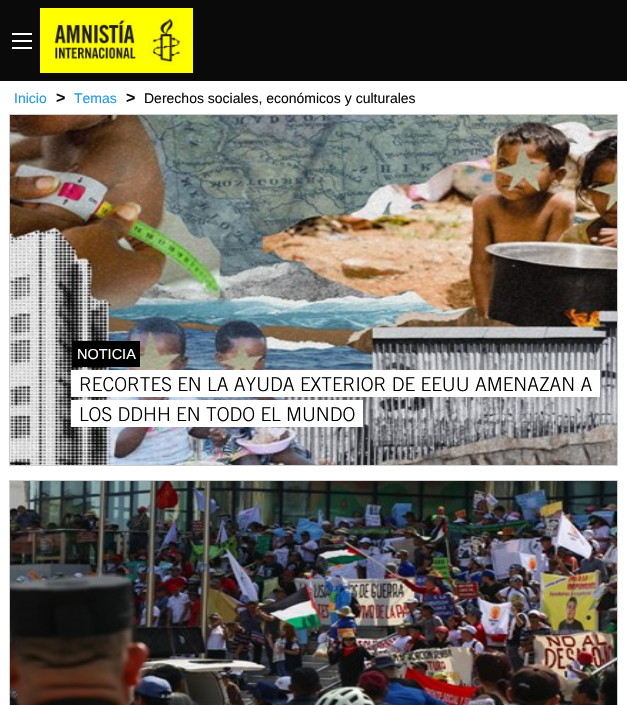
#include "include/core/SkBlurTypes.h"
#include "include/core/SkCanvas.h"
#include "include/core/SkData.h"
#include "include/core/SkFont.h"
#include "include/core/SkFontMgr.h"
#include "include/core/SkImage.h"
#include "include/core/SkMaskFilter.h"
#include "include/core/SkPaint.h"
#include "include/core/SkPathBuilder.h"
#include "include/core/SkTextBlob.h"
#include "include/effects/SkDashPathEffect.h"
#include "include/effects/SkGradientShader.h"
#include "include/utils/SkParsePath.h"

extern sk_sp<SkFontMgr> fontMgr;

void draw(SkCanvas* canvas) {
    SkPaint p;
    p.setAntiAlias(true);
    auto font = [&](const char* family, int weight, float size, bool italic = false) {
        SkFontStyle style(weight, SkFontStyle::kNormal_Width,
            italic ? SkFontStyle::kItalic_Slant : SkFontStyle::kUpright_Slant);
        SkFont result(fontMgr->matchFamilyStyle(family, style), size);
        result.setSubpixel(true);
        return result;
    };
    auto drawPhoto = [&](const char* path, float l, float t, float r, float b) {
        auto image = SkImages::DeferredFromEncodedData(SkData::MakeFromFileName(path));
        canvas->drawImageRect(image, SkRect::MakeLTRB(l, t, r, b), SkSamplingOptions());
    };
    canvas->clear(0xFFFFFFFF);
    {
        const struct { float l, t, r, b; SkColor color; } items[] = {
            {0, 0, 627, 81, 0xFF0A0A0A},
            {12, 47, 32, 49, 0xFFFEFEFE},
            {12, 40, 32, 42, 0xFFFEFEFE},
            {12, 33, 32, 35, 0xFFFEFEFE},
        };
        for (auto [l, t, r, b, color] : items) {
            p.setColor(color);
            canvas->drawRect(SkRect::MakeLTRB(l, t, r, b), p);
        }
    }
    drawPhoto("media/1.png", 40, 8, 193, 73);
    auto font1 = font("Liberation Sans", 400, 14);
    p.setColor(0xFF2199E8);
    canvas->drawString("Inicio", 14, 103, font1, p);
    auto font2 = font("Liberation Sans", 700, 16);
    p.setColor(0xFF0A0A0A);
    canvas->drawString(">", 56, 103, font2, p);
    p.setColor(0xFF2199E8);
    canvas->drawString("Temas", 74, 103, font1, p);
    p.setColor(0xFF0A0A0A);
    canvas->drawString(">", 126, 103, font2, p);
    canvas->drawString("Derechos sociales, económicos y culturales", 144, 103, font1, p);
    p.setStyle(SkPaint::kStroke_Style);
    p.setStrokeWidth(1);
    p.setColor(0xFFCECECE);
    canvas->drawRect(SkRect::MakeLTRB(9.5f, 114.5f, 617.5f, 465.5f), p);
    drawPhoto("media/2.png", 10, 115, 617, 465);
    p.setStyle(SkPaint::kFill_Style);
    p.setColor(0xFF000000);
    canvas->drawRect(SkRect::MakeLTRB(72, 341, 140, 367), p);
    auto font3 = font("Liberation Sans", 400, 14.5f);
    p.setColor(0xFFFFFFFF);
    canvas->drawString("NOTICIA", 77, 359, font3, p);
    canvas->drawRect(SkRect::MakeLTRB(79, 370, 600, 397), p);
    auto font4 = font("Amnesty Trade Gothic", 300, 19.2f);
    p.setColor(0xFF000000);
    canvas->drawString("RECORTES EN LA AYUDA EXTERIOR DE EEUU AMENAZAN A", 79, 391, font4, p);
    p.setColor(0xFFFFFFFF);
    canvas->drawRect(SkRect::MakeLTRB(71, 370, 79, 397), p);
    canvas->drawRect(SkRect::MakeLTRB(79, 400, 363, 427), p);
    p.setColor(0xFF000000);
    canvas->drawString("LOS DDHH EN TODO EL MUNDO", 79, 421, font4, p);
    p.setColor(0xFFFFFFFF);
    canvas->drawRect(SkRect::MakeLTRB(71, 400, 79, 427), p);
    p.setStyle(SkPaint::kStroke_Style);
    p.setColor(0xFFCECECE);
    canvas->drawRect(SkRect::MakeLTRB(9.5f, 480.5f, 617.5f, 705.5f), p);
    drawPhoto("media/3.png", 10, 481, 617, 705);
}
